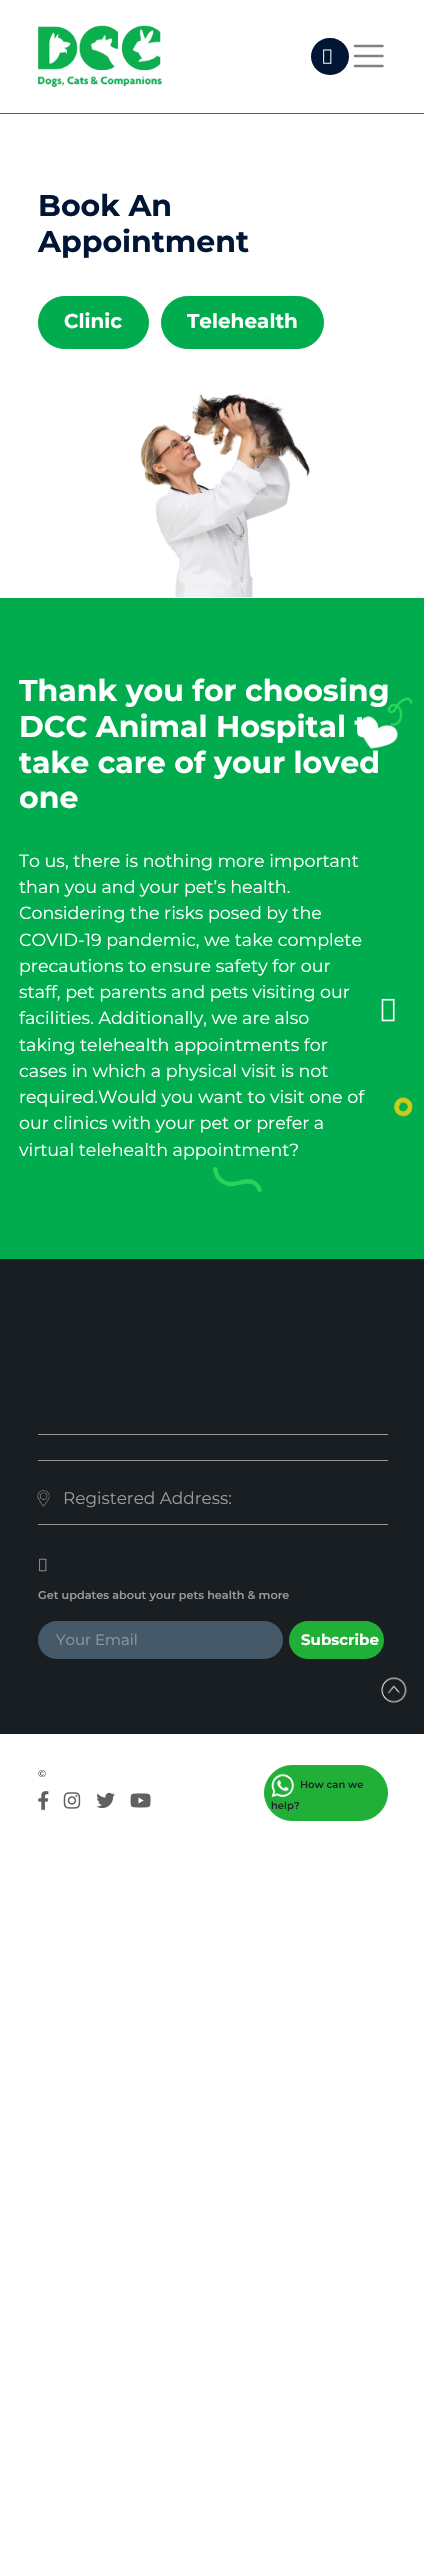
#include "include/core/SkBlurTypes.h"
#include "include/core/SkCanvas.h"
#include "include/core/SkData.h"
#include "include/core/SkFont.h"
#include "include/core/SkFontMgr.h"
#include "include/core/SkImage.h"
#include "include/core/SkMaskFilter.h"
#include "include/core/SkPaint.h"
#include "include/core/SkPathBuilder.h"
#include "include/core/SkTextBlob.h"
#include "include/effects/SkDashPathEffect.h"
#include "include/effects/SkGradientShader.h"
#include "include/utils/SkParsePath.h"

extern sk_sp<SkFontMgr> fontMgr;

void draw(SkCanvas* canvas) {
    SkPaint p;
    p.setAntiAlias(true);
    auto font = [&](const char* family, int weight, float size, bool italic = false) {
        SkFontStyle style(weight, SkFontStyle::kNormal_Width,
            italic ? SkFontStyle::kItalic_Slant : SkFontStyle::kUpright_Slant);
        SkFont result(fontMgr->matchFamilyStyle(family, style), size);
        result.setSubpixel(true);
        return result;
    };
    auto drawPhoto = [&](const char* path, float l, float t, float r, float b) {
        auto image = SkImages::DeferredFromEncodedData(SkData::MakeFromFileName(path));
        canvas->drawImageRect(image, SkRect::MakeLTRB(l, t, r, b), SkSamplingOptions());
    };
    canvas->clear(0xFFFFFFFF);
    p.setColor(0xFF606060);
    canvas->drawRect(SkRect::MakeLTRB(0, 113, 424, 114), p);
    drawPhoto("media/1.png", 37, 25, 162, 87);
    p.setColor(0xFF011635);
    canvas->drawRoundRect(SkRect::MakeLTRB(311, 38, 349, 75), 18.5f, 18.5f, p);
    drawPhoto("media/2.png", 323, 49, 332, 64);
    p.setStyle(SkPaint::kStroke_Style);
    p.setStrokeWidth(2.5f);
    p.setStrokeCap(SkPaint::kRound_Cap);
    p.setColor(0xFF808080);
    canvas->drawPath(SkPathBuilder().moveTo(355, 46).lineTo(382.5f, 46).moveTo(355, 56).lineTo(382.5f, 56).moveTo(355, 66).lineTo(382.5f, 66).detach(), p);
    auto font1 = font("Montserrat", 700, 30);
    p.setStyle(SkPaint::kFill_Style);
    p.setColor(0xFF011635);
    canvas->drawString("Book An", 38, 216, font1, p);
    canvas->drawString("Appointment", 38, 252, font1, p);
    p.setColor(0xFF00AC4D);
    canvas->drawRoundRect(SkRect::MakeLTRB(38.5f, 296.5f, 148.5f, 348.5f), 26, 26, p);
    p.setStyle(SkPaint::kStroke_Style);
    p.setStrokeWidth(1);
    p.setStrokeCap(SkPaint::kButt_Cap);
    canvas->drawRoundRect(SkRect::MakeLTRB(38.5f, 296.5f, 148.5f, 348.5f), 26, 26, p);
    auto font2 = font("Montserrat", 700, 20);
    p.setStyle(SkPaint::kFill_Style);
    p.setColor(0xFFFFFFFF);
    canvas->drawString("Clinic", 64, 328, font2, p);
    p.setColor(0xFF00AC4D);
    canvas->drawRoundRect(SkRect::MakeLTRB(161.5f, 296.5f, 323.5f, 348.5f), 26, 26, p);
    p.setStyle(SkPaint::kStroke_Style);
    canvas->drawRoundRect(SkRect::MakeLTRB(161.5f, 296.5f, 323.5f, 348.5f), 26, 26, p);
    p.setStyle(SkPaint::kFill_Style);
    p.setColor(0xFFFFFFFF);
    canvas->drawString("Telehealth", 187, 328, font2, p);
    drawPhoto("media/3.png", 140, 390, 310, 598);
    p.setColor(0xFF00AC4D);
    canvas->drawRect(SkRect::MakeLTRB(0, 598, 424, 1259), p);
    drawPhoto("media/5.png", 387, 697, 413, 727);
    p.setColor(0xFFFFFFFF);
    {
        const struct { const char* s; float x, y; } items[] = {
            {"Thank you for choosing", 19, 701},
            {"DCC Animal Hospital t", 19, 737},
            {"take care of your loved", 19, 773},
            {"one", 19, 808},
        };
        for (auto [s, x, y] : items) {
            canvas->drawString(s, x, y, font1, p);
        }
    }
    drawPhoto("media/4.png", 361, 716, 398, 749);
    auto font3 = font("Montserrat", 400, 17.5f);
    {
        const struct { const char* s; float x, y; } items[] = {
            {"To us, there is nothing more important", 19, 867},
            {"than you and your pet’s health.", 19, 893},
            {"Considering the risks posed by the", 19, 919},
            {"COVID-19 pandemic, we take complete", 19, 946},
            {"precautions to ensure safety for our", 19, 972},
            {"staff, pet parents and pets visiting our", 19, 998},
            {"facilities. Additionally, we are also", 19, 1024},
            {"taking telehealth appointments for", 19, 1051},
            {"cases in which a physical visit is not", 19, 1077},
            {"required.Would you want to visit one of", 19, 1103},
            {"our clinics with your pet or prefer a", 19, 1129},
            {"virtual telehealth appointment?", 19, 1156},
        };
        for (auto [s, x, y] : items) {
            canvas->drawString(s, x, y, font3, p);
        }
    }
    drawPhoto("media/6.png", 393, 1097, 413, 1117);
    drawPhoto("media/7.png", 213, 1167, 262, 1192);
    drawPhoto("media/8.png", 381, 998, 395, 1022);
    {
        const struct { float l, t, r, b; SkColor color; } items[] = {
            {0, 1259, 424, 1734, 0xFF191E23},
            {38, 1434, 388, 1435, 0xFF999999},
            {38, 1460, 388, 1461, 0xFF999999},
            {38, 1524, 388, 1525, 0xFF999999},
        };
        for (auto [l, t, r, b, color] : items) {
            p.setColor(color);
            canvas->drawRect(SkRect::MakeLTRB(l, t, r, b), p);
        }
    }
    drawPhoto("media/9.png", 37, 1490, 50, 1507);
    auto font4 = font("Montserrat", 400, 16.9f);
    canvas->drawString("Registered Address:", 63, 1504, font4, p);
    drawPhoto("media/10.png", 39, 1558, 47, 1572);
    auto font5 = font("Montserrat", 600, 11.25f);
    canvas->drawString("Get updates about your pets health & more", 38, 1599, font5, p);
    p.setColor(0xFF465968);
    canvas->drawRoundRect(SkRect::MakeLTRB(38, 1621, 283, 1659), 19, 19, p);
    auto font6 = font("Montserrat", 400, 15);
    p.setColor(0xFF909BA4);
    canvas->drawString("Your Email", 56, 1645, font6, p);
    p.setColor(0xFF20B038);
    canvas->drawRoundRect(SkRect::MakeLTRB(289, 1621, 384, 1659), 19, 19, p);
    auto font7 = font("Montserrat", 700, 15);
    p.setColor(0xFFFFFFFF);
    canvas->drawString("Subscribe", 301, 1645, font7, p);
    drawPhoto("media/11.png", 381, 1677, 407, 1703);
    auto font8 = font("Montserrat", 400, 10);
    p.setColor(0xFF212529);
    canvas->drawString("©", 38, 1777, font8, p);
    drawPhoto("media/12.png", 38, 1791, 49, 1810);
    drawPhoto("media/13.png", 63, 1792, 81, 1809);
    drawPhoto("media/14.png", 96, 1792, 115, 1809);
    drawPhoto("media/15.png", 130, 1793, 151, 1808);
    p.setColor(0xFF20B038);
    canvas->drawRoundRect(SkRect::MakeLTRB(264.5f, 1765.5f, 387.5f, 1820.5f), 27.5f, 27.5f, p);
    p.setStyle(SkPaint::kStroke_Style);
    canvas->drawRoundRect(SkRect::MakeLTRB(264.5f, 1765.5f, 387.5f, 1820.5f), 27.5f, 27.5f, p);
    drawPhoto("media/16.png", 271, 1773, 294, 1798);
    auto font9 = font("Montserrat", 600, 10);
    p.setStyle(SkPaint::kFill_Style);
    p.setColor(0xFF212529);
    canvas->drawString("How can we", 300, 1788, font9, p);
    canvas->drawString("help?", 271, 1809, font9, p);
}
